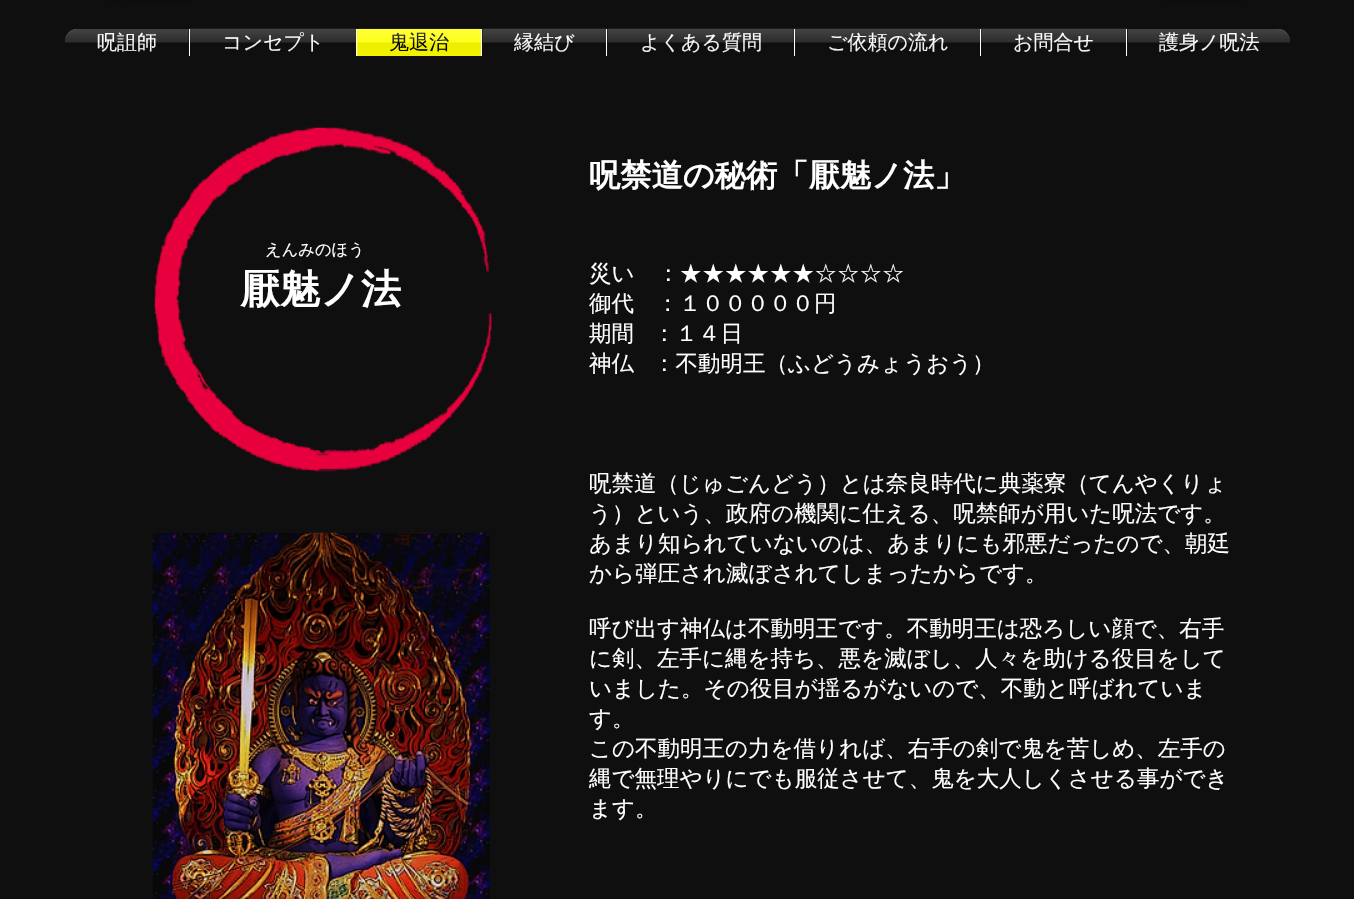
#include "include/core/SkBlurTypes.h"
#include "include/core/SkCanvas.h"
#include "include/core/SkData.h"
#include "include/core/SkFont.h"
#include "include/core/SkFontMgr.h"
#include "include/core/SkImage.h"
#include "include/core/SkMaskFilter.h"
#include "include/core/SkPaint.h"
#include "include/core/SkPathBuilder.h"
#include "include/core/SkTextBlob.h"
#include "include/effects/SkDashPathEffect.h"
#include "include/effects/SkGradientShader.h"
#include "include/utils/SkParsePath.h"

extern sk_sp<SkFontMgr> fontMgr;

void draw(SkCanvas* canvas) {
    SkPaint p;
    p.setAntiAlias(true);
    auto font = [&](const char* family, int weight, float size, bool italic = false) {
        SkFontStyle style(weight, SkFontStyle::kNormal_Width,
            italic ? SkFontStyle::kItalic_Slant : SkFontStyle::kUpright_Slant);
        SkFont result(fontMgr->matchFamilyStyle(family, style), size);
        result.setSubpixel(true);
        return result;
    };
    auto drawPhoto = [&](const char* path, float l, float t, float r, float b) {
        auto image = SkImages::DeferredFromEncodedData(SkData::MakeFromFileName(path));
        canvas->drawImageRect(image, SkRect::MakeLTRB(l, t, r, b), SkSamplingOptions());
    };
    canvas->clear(0xFF0F0F0F);
    drawPhoto("media/1.png", 108, 0, 190, 3);
    drawPhoto("media/2.png", 1165, 0, 1247, 3);
    drawPhoto("media/3.png", 65, 29, 1290, 42);
    p.setColor(0xFF0F0F0F);
    canvas->drawPath(SkPathBuilder().moveTo(78, 29).lineTo(189, 29).lineTo(189, 56).lineTo(78, 56).cubicTo(71, 56, 65, 50, 65, 43).lineTo(65, 42).cubicTo(65, 35, 71, 29, 78, 29).close().detach(), p);
    auto font1 = font("WenQuanYi Zen Hei", 500, 20);
    p.setColor(0xFFFFFFFF);
    canvas->drawString("呪詛師", 97, 49, font1, p);
    drawPhoto("media/4.png", 65, 29, 189, 52);
    p.setColor(0xFF0F0F0F);
    canvas->drawRect(SkRect::MakeLTRB(190, 29, 356, 42), p);
    p.setColor(0xFFFFFFFF);
    canvas->drawRect(SkRect::MakeLTRB(189, 29, 190, 56), p);
    canvas->drawString("コンセプト", 222, 49, font1, p);
    drawPhoto("media/5.png", 190, 28, 356, 52);
    p.setColor(0xFFFFFF00);
    canvas->drawRect(SkRect::MakeLTRB(357, 29, 481, 56), p);
    p.setColor(0xFFFFFFFF);
    canvas->drawRect(SkRect::MakeLTRB(356, 29, 357, 56), p);
    p.setColor(0xFF000000);
    canvas->drawString("鬼退治", 389, 49, font1, p);
    drawPhoto("media/6.png", 357, 28, 481, 56);
    p.setColor(0xFF0F0F0F);
    canvas->drawRect(SkRect::MakeLTRB(482, 29, 606, 42), p);
    p.setColor(0xFFFFFFFF);
    canvas->drawRect(SkRect::MakeLTRB(481, 29, 482, 56), p);
    canvas->drawString("縁結び", 514, 49, font1, p);
    drawPhoto("media/7.png", 482, 28, 606, 52);
    p.setColor(0xFF0F0F0F);
    canvas->drawRect(SkRect::MakeLTRB(607, 29, 794, 42), p);
    p.setColor(0xFFFFFFFF);
    canvas->drawRect(SkRect::MakeLTRB(606, 29, 607, 56), p);
    canvas->drawString("よくある質問", 640, 49, font1, p);
    drawPhoto("media/8.png", 607, 28, 794, 53);
    p.setColor(0xFF0F0F0F);
    canvas->drawRect(SkRect::MakeLTRB(795, 29, 980, 42), p);
    p.setColor(0xFFFFFFFF);
    canvas->drawRect(SkRect::MakeLTRB(794, 29, 795, 56), p);
    canvas->drawString("ご依頼の流れ", 827, 49, font1, p);
    drawPhoto("media/9.png", 795, 28, 980, 52);
    p.setColor(0xFF0F0F0F);
    canvas->drawRect(SkRect::MakeLTRB(981, 29, 1126, 42), p);
    p.setColor(0xFFFFFFFF);
    canvas->drawRect(SkRect::MakeLTRB(980, 29, 981, 56), p);
    canvas->drawString("お問合せ", 1013, 49, font1, p);
    drawPhoto("media/10.png", 981, 28, 1126, 52);
    p.setColor(0xFF0F0F0F);
    canvas->drawPath(SkPathBuilder().moveTo(1126, 29).lineTo(1277, 29).cubicTo(1284, 29, 1290, 35, 1290, 42).lineTo(1290, 43).cubicTo(1290, 50, 1284, 56, 1277, 56).lineTo(1126, 56).close().detach(), p);
    p.setColor(0xFFFFFFFF);
    canvas->drawRect(SkRect::MakeLTRB(1126, 29, 1127, 56), p);
    canvas->drawString("護身ノ呪法", 1159, 49, font1, p);
    drawPhoto("media/11.png", 1127, 29, 1290, 52);
    drawPhoto("media/12.png", 153, 127, 492, 472);
    auto font2 = font("WenQuanYi Zen Hei", 700, 31.25f);
    canvas->drawString("呪禁道の秘術「厭魅ノ法」", 589, 186, font2, p);
    auto font3 = font("WenQuanYi Zen Hei", 500, 16.25f);
    canvas->drawString("えんみのほう", 265, 255, font3, p);
    auto font4 = font("WenQuanYi Zen Hei", 700, 40);
    canvas->drawString("厭魅ノ法", 240, 303, font4, p);
    auto font5 = font("WenQuanYi Zen Hei", 500, 22.5f);
    {
        const struct { const char* s; float x, y; } items[] = {
            {"災い　：★★★★★★☆☆☆☆", 589, 281},
            {"御代　：１０００００円", 589, 311},
            {"期間", 589, 341},
            {"：１４日", 653, 341},
            {"神仏", 589, 371},
            {"：不動明王（ふどうみょうおう）", 653, 371},
        };
        for (auto [s, x, y] : items) {
            canvas->drawString(s, x, y, font5, p);
        }
    }
    drawPhoto("media/13.png", 152, 532, 490, 899);
    {
        const struct { const char* s; float x, y; } items[] = {
            {"呪禁道（じゅごんどう）とは奈良時代に典薬寮（てんやくりょ", 589, 491},
            {"う）という、政府の機関に仕える、呪禁師が用いた呪法です。", 589, 521},
            {"あまり知られていないのは、あまりにも邪悪だったので、朝廷", 589, 551},
            {"から弾圧され滅ぼされてしまったからです。", 589, 581},
            {"呼び出す神仏は不動明王です。不動明王は恐ろしい顔で、右手", 589, 636},
            {"に剣、左手に縄を持ち、悪を滅ぼし、人々を助ける役目をして", 589, 666},
            {"いました。その役目が揺るがないので、不動と呼ばれていま", 589, 696},
            {"す。", 589, 726},
            {"この不動明王の力を借りれば、右手の剣で鬼を苦しめ、左手の", 589, 756},
            {"縄で無理やりにでも服従させて、鬼を大人しくさせる事ができ", 589, 786},
            {"ます。", 589, 816},
        };
        for (auto [s, x, y] : items) {
            canvas->drawString(s, x, y, font5, p);
        }
    }
}
